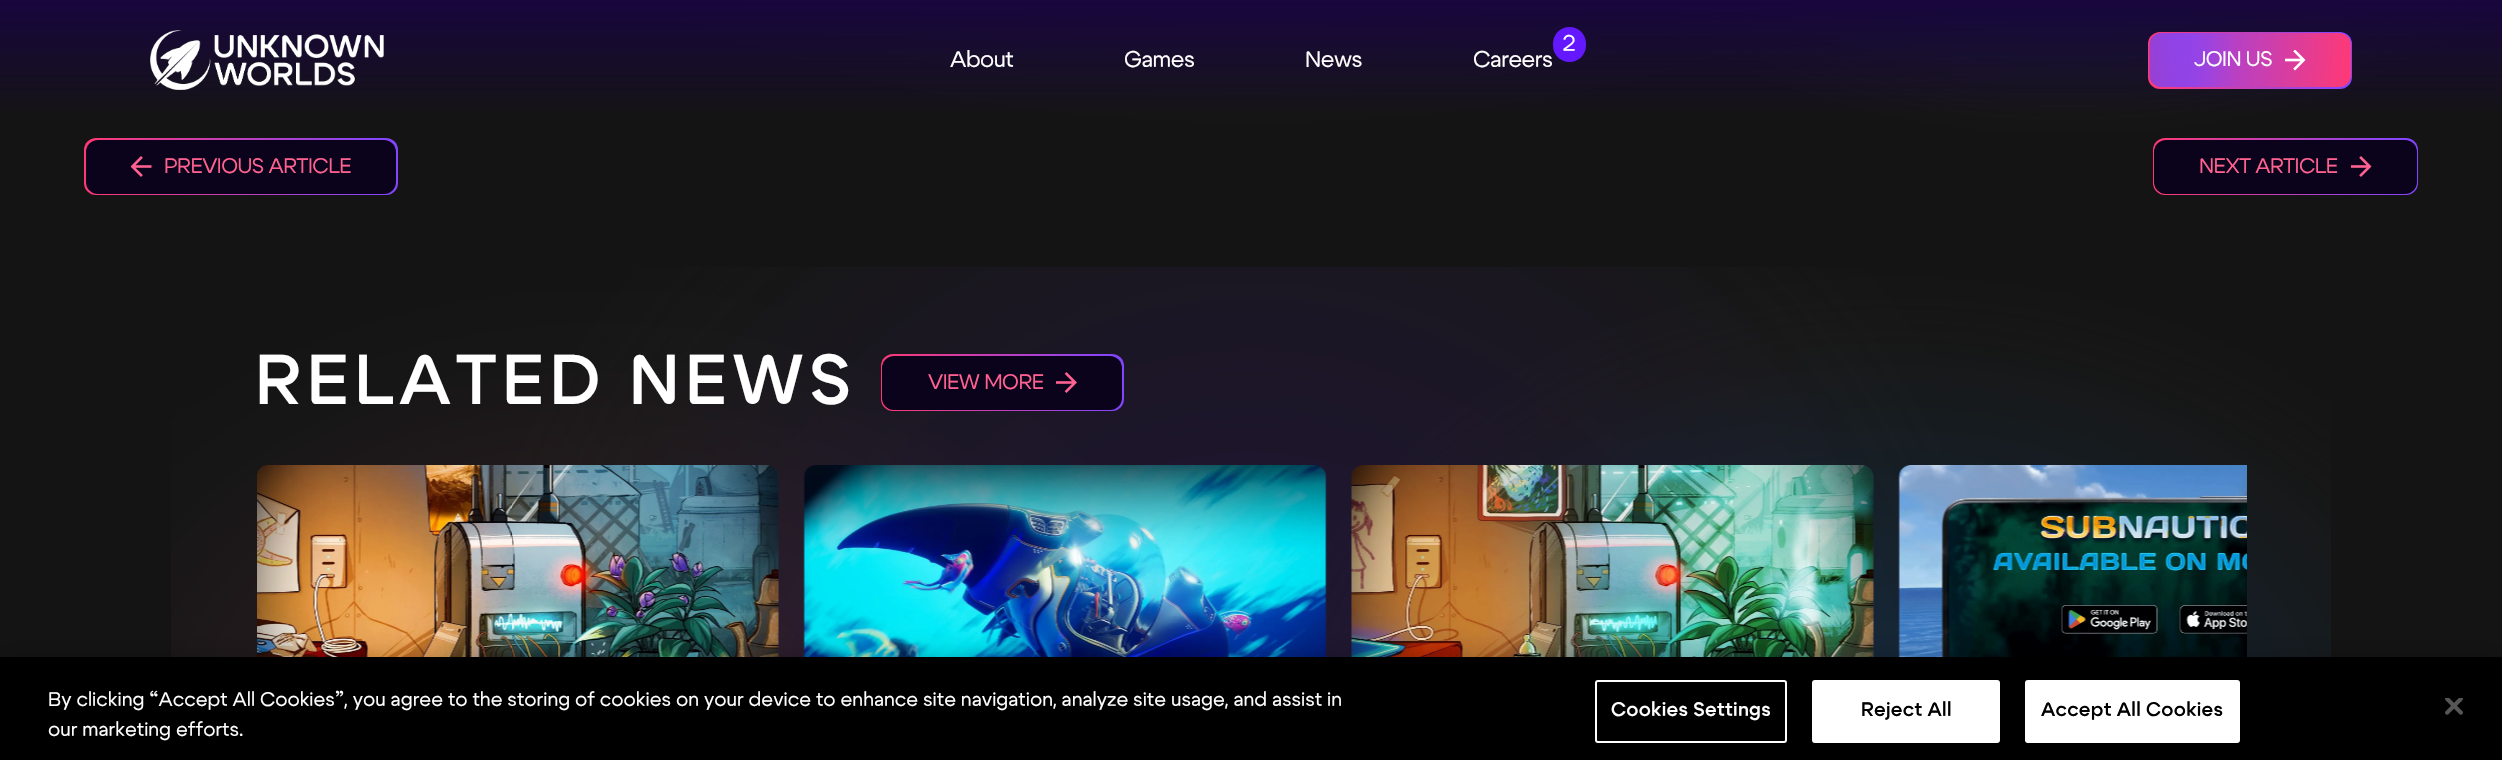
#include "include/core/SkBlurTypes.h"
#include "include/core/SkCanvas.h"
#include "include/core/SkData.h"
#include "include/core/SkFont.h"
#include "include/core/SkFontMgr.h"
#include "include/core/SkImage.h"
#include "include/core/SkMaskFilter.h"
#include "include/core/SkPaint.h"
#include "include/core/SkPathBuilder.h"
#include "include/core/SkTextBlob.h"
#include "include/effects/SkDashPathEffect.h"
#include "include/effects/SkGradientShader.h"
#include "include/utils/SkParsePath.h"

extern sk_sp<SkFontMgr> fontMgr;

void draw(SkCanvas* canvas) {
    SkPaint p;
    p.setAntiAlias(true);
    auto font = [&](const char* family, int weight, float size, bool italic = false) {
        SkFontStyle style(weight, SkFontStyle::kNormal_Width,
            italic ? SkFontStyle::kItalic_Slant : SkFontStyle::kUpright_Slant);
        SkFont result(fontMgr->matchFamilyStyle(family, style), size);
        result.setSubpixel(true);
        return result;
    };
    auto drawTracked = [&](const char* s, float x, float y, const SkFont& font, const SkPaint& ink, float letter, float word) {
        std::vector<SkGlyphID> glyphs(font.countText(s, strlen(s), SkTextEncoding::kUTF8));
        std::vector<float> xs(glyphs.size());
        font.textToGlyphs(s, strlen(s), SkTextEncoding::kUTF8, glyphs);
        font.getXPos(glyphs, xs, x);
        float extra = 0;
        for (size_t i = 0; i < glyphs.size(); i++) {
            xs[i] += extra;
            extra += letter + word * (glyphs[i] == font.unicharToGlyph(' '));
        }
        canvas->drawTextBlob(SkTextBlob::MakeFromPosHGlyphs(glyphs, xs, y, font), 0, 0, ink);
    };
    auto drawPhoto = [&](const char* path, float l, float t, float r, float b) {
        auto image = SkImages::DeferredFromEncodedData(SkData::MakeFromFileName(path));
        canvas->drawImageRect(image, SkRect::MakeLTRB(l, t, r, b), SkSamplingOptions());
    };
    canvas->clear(0xFF141414);
    {
        const SkColor colors[] = {0xFF201537, 0xFF161616, 0xFF141414};
        const float stops[] = {0, 0.6f, 0.7f};
        SkMatrix m = SkMatrix::Translate(1251, -265).preScale(1238, 574);
        p.setShader(SkGradientShader::MakeRadial({0, 0}, 1, colors, stops, 3, SkTileMode::kClamp, 0, &m));
        p.setAlpha(255);
    }
    canvas->drawOval(SkRect::MakeLTRB(376, -671, 2126, 140), p);
    {
        const SkColor colors[] = {0x26008DFF, 0x33202020, 0x00202020};
        const float stops[] = {0, 0.6f, 0.7f};
        SkMatrix m = SkMatrix::Translate(2068, -164).preScale(743, 430);
        p.setShader(SkGradientShader::MakeRadial({0, 0}, 1, colors, stops, 3, SkTileMode::kClamp, 0, &m));
        p.setAlpha(255);
    }
    canvas->drawOval(SkRect::MakeLTRB(1543, -468, 2593, 140), p);
    {
        const SkColor colors[] = {0xFF17053D, 0x0017053D};
        const float stops[] = {0, 1};
        const SkPoint ends[] = {{1251, 0}, {1251, 120}};
        p.setShader(SkGradientShader::MakeLinear(ends, colors, stops, 2, SkTileMode::kClamp));
        p.setAlpha(255);
    }
    canvas->drawRect(SkRect::MakeLTRB(0, 0, 2502, 113), p);
    drawPhoto("media/1.png", 150, 30, 384, 90);
    auto font1 = font("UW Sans", 400, 22.5f);
    p.setShader(nullptr);
    p.setColor(0xFFFFFFFF);
    {
        const struct { const char* s; float x, y; } items[] = {
            {"About", 950, 67},
            {"Games", 1124, 67},
            {"News", 1305, 67},
        };
        for (auto [s, x, y] : items) {
            drawTracked(s, x, y, font1, p, -0.5f, 0);
        }
    }
    p.setColor(0xFF6418FF);
    canvas->drawRoundRect(SkRect::MakeLTRB(1553, 27, 1586, 62), 16.5f, 16.5f, p);
    p.setColor(0xFFFFFFFF);
    drawTracked("2", 1562, 51, font1, p, -0.5f, 0);
    drawTracked("Careers", 1473, 67, font1, p, -0.5f, 0);
    {
        const SkColor colors[] = {0xFFFF3975, 0xFF8346FE};
        const float stops[] = {0.02f, 0.95f};
        const SkPoint ends[] = {{2146, 68}, {2354, 52}};
        p.setShader(SkGradientShader::MakeLinear(ends, colors, stops, 2, SkTileMode::kClamp));
        p.setAlpha(255);
    }
    canvas->drawRoundRect(SkRect::MakeLTRB(2148, 32, 2352, 89), 12, 12, p);
    {
        const SkColor colors[] = {0xFF8346FE, 0xFFFF3975};
        const float stops[] = {0, 1};
        const SkPoint ends[] = {{2148, 51}, {2352, 69}};
        p.setShader(SkGradientShader::MakeLinear(ends, colors, stops, 2, SkTileMode::kClamp));
        p.setAlpha(255);
    }
    canvas->drawRoundRect(SkRect::MakeLTRB(2150, 33, 2351, 87), 12, 12, p);
    drawPhoto("media/2.png", 2149, 33, 2231, 87);
    auto font2 = font("UW Sans", 400, 21);
    p.setShader(nullptr);
    p.setColor(0xFFFFFFFF);
    drawTracked("JOIN US", 2194, 66, font2, p, -0.5f, 0);
    drawPhoto("media/3.png", 2285, 50, 2306, 71);
    {
        const SkColor colors[] = {0xFFFF3975, 0xFF8346FE};
        const float stops[] = {0.02f, 0.95f};
        const SkPoint ends[] = {{83, 178}, {399, 155}};
        p.setShader(SkGradientShader::MakeLinear(ends, colors, stops, 2, SkTileMode::kClamp));
        p.setAlpha(255);
    }
    canvas->drawRoundRect(SkRect::MakeLTRB(84, 138, 398, 195), 12, 12, p);
    p.setShader(nullptr);
    p.setColor(0xFF0B021C);
    canvas->drawRoundRect(SkRect::MakeLTRB(86, 140, 396, 194), 12, 12, p);
    drawPhoto("media/4.png", 131, 156, 152, 177);
    p.setColor(0xFFFF6191);
    drawTracked("PREVIOUS ARTICLE", 164, 173, font2, p, -0.5f, 0);
    {
        const SkColor colors[] = {0xFFFF3975, 0xFF8346FE};
        const float stops[] = {0.02f, 0.95f};
        const SkPoint ends[] = {{2151, 176}, {2419, 157}};
        p.setShader(SkGradientShader::MakeLinear(ends, colors, stops, 2, SkTileMode::kClamp));
        p.setAlpha(255);
    }
    canvas->drawRoundRect(SkRect::MakeLTRB(2153, 138, 2418, 195), 12, 12, p);
    p.setShader(nullptr);
    p.setColor(0xFF0B021C);
    canvas->drawRoundRect(SkRect::MakeLTRB(2154, 140, 2417, 194), 12, 12, p);
    p.setColor(0xFFFF6191);
    drawTracked("NEXT ARTICLE", 2199, 173, font2, p, -0.5f, 0);
    drawPhoto("media/5.png", 2351, 156, 2372, 177);
    canvas->save();
    canvas->clipRect(SkRect::MakeLTRB(171, 267, 2331, 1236));
    {
        const SkColor colors[] = {0xFF372027, 0xFF161616, 0xFF141414};
        const float stops[] = {0, 0.6f, 0.7f};
        SkMatrix m = SkMatrix::Translate(603, 752).preScale(916, 685);
        p.setShader(SkGradientShader::MakeRadial({0, 0}, 1, colors, stops, 3, SkTileMode::kClamp, 0, &m));
        p.setAlpha(255);
    }
    canvas->drawOval(SkRect::MakeLTRB(-45, 267, 1251, 1236), p);
    {
        const SkColor colors[] = {0x266418FF, 0x33202020, 0x00202020};
        const float stops[] = {0, 0.6f, 0.7f};
        SkMatrix m = SkMatrix::Translate(1251, 752).preScale(1146, 1097);
        p.setShader(SkGradientShader::MakeRadial({0, 0}, 1, colors, stops, 3, SkTileMode::kClamp, 0, &m));
        p.setAlpha(255);
    }
    canvas->drawOval(SkRect::MakeLTRB(441, -24, 2061, 1527), p);
    canvas->restore();
    auto font3 = font("UW Sans", 600, 70.5f);
    p.setShader(nullptr);
    p.setColor(0xFFFFFFFF);
    drawTracked("RELATED NEWS", 255, 404, font3, p, 5.6f, 0);
    {
        const SkColor colors[] = {0xFFFF3975, 0xFF8346FE};
        const float stops[] = {0.02f, 0.95f};
        const SkPoint ends[] = {{879, 392}, {1125, 373}};
        p.setShader(SkGradientShader::MakeLinear(ends, colors, stops, 2, SkTileMode::kClamp));
        p.setAlpha(255);
    }
    canvas->drawRoundRect(SkRect::MakeLTRB(881, 354, 1124, 411), 12, 12, p);
    p.setShader(nullptr);
    p.setColor(0xFF0B021C);
    canvas->drawRoundRect(SkRect::MakeLTRB(882, 356, 1122, 410), 12, 12, p);
    p.setColor(0xFFFF6191);
    drawTracked("VIEW MORE", 928, 389, font2, p, -0.5f, 0);
    drawPhoto("media/6.png", 1056, 372, 1077, 393);
    canvas->save();
    canvas->clipRect(SkRect::MakeLTRB(171, 267, 2331, 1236));
    {
        const SkColor colors[] = {0x26008DFF, 0x33202020, 0x00202020};
        const float stops[] = {0, 0.6f, 0.7f};
        SkMatrix m = SkMatrix::Translate(1899, 752).preScale(916, 685);
        p.setShader(SkGradientShader::MakeRadial({0, 0}, 1, colors, stops, 3, SkTileMode::kClamp, 0, &m));
        p.setAlpha(255);
    }
    canvas->drawOval(SkRect::MakeLTRB(1251, 267, 2547, 1236), p);
    canvas->restore();
    p.setShader(nullptr);
    p.setColor(0x33380C91);
    canvas->drawPath(SkPathBuilder().moveTo(269, 465).lineTo(767, 465).cubicTo(773.5f, 465, 779, 470.5f, 779, 477).lineTo(779, 735).lineTo(257, 735).lineTo(257, 477).cubicTo(257, 470.5f, 262.5f, 465, 269, 465).close().detach(), p);
    drawPhoto("media/7.png", 257, 465, 779, 657);
    canvas->drawPath(SkPathBuilder().moveTo(816, 465).lineTo(1314, 465).cubicTo(1320.5f, 465, 1326, 470.5f, 1326, 477).lineTo(1326, 735).lineTo(804, 735).lineTo(804, 477).cubicTo(804, 470.5f, 809.5f, 465, 816, 465).close().detach(), p);
    drawPhoto("media/8.png", 803, 465, 1327, 657);
    canvas->drawPath(SkPathBuilder().moveTo(1364, 465).lineTo(1862, 465).cubicTo(1868.5f, 465, 1874, 470.5f, 1874, 477).lineTo(1874, 735).lineTo(1352, 735).lineTo(1352, 477).cubicTo(1352, 470.5f, 1357.5f, 465, 1364, 465).close().detach(), p);
    drawPhoto("media/9.png", 1351, 465, 1874, 657);
    canvas->drawPath(SkPathBuilder().moveTo(1911, 465).lineTo(2247, 465).lineTo(2247, 735).lineTo(1899, 735).lineTo(1899, 477).cubicTo(1899, 470.5f, 1904.5f, 465, 1911, 465).close().detach(), p);
    drawPhoto("media/10.png", 1898, 465, 2247, 657);
    p.setColor(0x33000000);
    p.setMaskFilter(SkMaskFilter::MakeBlur(kNormal_SkBlurStyle, 13.5f));
    canvas->drawRect(SkRect::MakeLTRB(0, 657, 2502, 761), p);
    p.setMaskFilter(nullptr);
    p.setColor(0xFF000000);
    canvas->drawRect(SkRect::MakeLTRB(0, 657, 2502, 760), p);
    auto font4 = font("UW Sans", 400, 19.5f);
    p.setColor(0xFFFFFFFF);
    canvas->drawString("By clicking “Accept All Cookies”, you agree to the storing of cookies on your device to enhance site navigation, analyze site usage, and assist in", 48, 706, font4, p);
    canvas->drawString("our marketing efforts.", 48, 736, font4, p);
    p.setStyle(SkPaint::kStroke_Style);
    p.setStrokeWidth(2);
    canvas->drawRoundRect(SkRect::MakeLTRB(1596, 681, 1786, 742), 2, 2, p);
    auto font5 = font("UW Sans", 600, 19.5f);
    p.setStyle(SkPaint::kFill_Style);
    drawTracked("Cookies Settings", 1611, 716, font5, p, 0.25f, 0);
    canvas->drawRoundRect(SkRect::MakeLTRB(1813, 681, 1999, 742), 2, 2, p);
    p.setStyle(SkPaint::kStroke_Style);
    canvas->drawRoundRect(SkRect::MakeLTRB(1813, 681, 1999, 742), 2, 2, p);
    p.setStyle(SkPaint::kFill_Style);
    p.setColor(0xFF000000);
    drawTracked("Reject All", 1861, 716, font5, p, 0.25f, 0);
    p.setColor(0xFFFFFFFF);
    canvas->drawRoundRect(SkRect::MakeLTRB(2026, 681, 2239, 742), 2, 2, p);
    p.setStyle(SkPaint::kStroke_Style);
    canvas->drawRoundRect(SkRect::MakeLTRB(2026, 681, 2239, 742), 2, 2, p);
    p.setStyle(SkPaint::kFill_Style);
    p.setColor(0xFF000000);
    drawTracked("Accept All Cookies", 2041, 716, font5, p, 0.25f, 0);
    drawPhoto("media/11.png", 2445, 698, 2463, 715);
}
